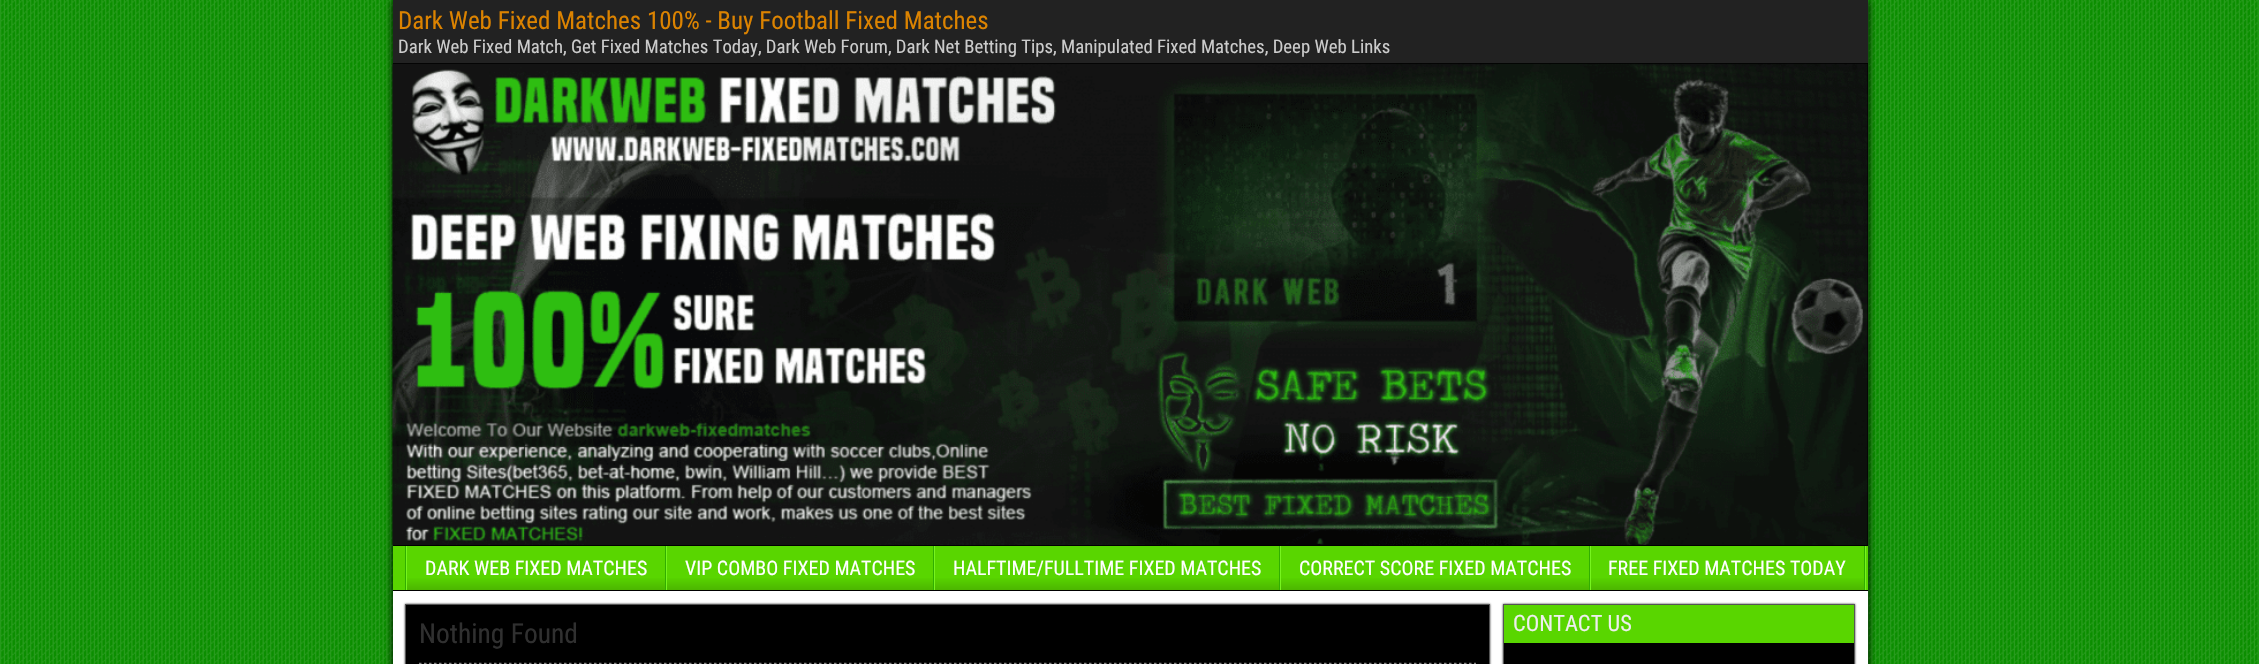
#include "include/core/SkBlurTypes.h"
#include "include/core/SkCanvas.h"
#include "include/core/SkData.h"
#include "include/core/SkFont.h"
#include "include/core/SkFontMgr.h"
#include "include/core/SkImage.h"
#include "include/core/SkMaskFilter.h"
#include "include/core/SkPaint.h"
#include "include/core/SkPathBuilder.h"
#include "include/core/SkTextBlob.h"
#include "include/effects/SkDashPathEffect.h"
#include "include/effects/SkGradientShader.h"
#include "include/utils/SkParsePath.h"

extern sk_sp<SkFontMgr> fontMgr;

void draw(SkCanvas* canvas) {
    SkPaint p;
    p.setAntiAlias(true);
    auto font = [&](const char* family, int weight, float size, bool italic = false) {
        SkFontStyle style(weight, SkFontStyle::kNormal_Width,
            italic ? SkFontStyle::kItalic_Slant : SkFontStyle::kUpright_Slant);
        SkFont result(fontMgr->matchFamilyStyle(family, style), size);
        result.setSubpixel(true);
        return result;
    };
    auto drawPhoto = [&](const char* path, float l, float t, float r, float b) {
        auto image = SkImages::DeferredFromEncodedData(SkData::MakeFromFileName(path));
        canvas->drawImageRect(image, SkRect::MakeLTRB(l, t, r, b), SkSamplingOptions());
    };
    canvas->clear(0xFF0B8E00);
    drawPhoto("media/1.png", 0, 0, 2259, 664);
    p.setColor(0xFF000000);
    p.setMaskFilter(SkMaskFilter::MakeBlur(kNormal_SkBlurStyle, 4));
    canvas->drawRect(SkRect::MakeLTRB(393, 0, 1868, 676), p);
    p.setMaskFilter(nullptr);
    p.setColor(0xFF222222);
    canvas->drawRect(SkRect::MakeLTRB(393, 0, 1868, 63), p);
    p.setColor(0xFF000000);
    canvas->drawRect(SkRect::MakeLTRB(393, 63, 1868, 546), p);
    auto font1 = font("Roboto Condensed", 400, 25);
    p.setColor(0xFFDC8300);
    canvas->drawString("Dark Web Fixed Matches 100% - Buy Football Fixed Matches", 398, 29, font1, p);
    auto font2 = font("Roboto Condensed", 400, 18.75f);
    p.setColor(0xFFCCCCCC);
    canvas->drawString("Dark Web Fixed Match, Get Fixed Matches Today, Dark Web Forum, Dark Net Betting Tips, Manipulated Fixed Matches, Deep Web Links", 398, 53, font2, p);
    drawPhoto("media/2.png", 392, 63, 1868, 545);
    {
        const struct { float l, t, r, b; SkColor color; } items[] = {
            {393, 546, 1868, 590, 0xFF59D600},
            {393, 590, 1868, 591, 0xFF000000},
            {1865, 546, 1866, 590, 0xFF77F41E},
            {405, 546, 406, 590, 0xFF31AE00},
        };
        for (auto [l, t, r, b, color] : items) {
            p.setColor(color);
            canvas->drawRect(SkRect::MakeLTRB(l, t, r, b), p);
        }
    }
    {
        const SkColor colors[] = {0xFF59D600, 0xFF4CB600};
        const float stops[] = {0.7f, 1};
        const SkPoint ends[] = {{536, 546}, {536, 590}};
        p.setShader(SkGradientShader::MakeLinear(ends, colors, stops, 2, SkTileMode::kClamp));
        p.setAlpha(255);
    }
    canvas->drawRect(SkRect::MakeLTRB(407, 578, 665, 590), p);
    p.setShader(nullptr);
    p.setColor(0xFF31AE00);
    canvas->drawRect(SkRect::MakeLTRB(665, 546, 666, 590), p);
    p.setColor(0xFF77F41E);
    canvas->drawRect(SkRect::MakeLTRB(406, 546, 407, 590), p);
    auto font3 = font("Roboto Condensed", 400, 20);
    p.setColor(0xFFFFFFFF);
    canvas->drawString("DARK WEB FIXED MATCHES", 425, 575, font3, p);
    {
        const SkColor colors[] = {0xFF59D600, 0xFF4CB600};
        const float stops[] = {0.7f, 1};
        const SkPoint ends[] = {{800, 546}, {800, 590}};
        p.setShader(SkGradientShader::MakeLinear(ends, colors, stops, 2, SkTileMode::kClamp));
        p.setAlpha(255);
    }
    canvas->drawRect(SkRect::MakeLTRB(667, 578, 933, 590), p);
    p.setShader(nullptr);
    p.setColor(0xFF31AE00);
    canvas->drawRect(SkRect::MakeLTRB(933, 546, 934, 590), p);
    p.setColor(0xFF77F41E);
    canvas->drawRect(SkRect::MakeLTRB(666, 546, 667, 590), p);
    p.setColor(0xFFFFFFFF);
    canvas->drawString("VIP COMBO FIXED MATCHES", 685, 575, font3, p);
    {
        const SkColor colors[] = {0xFF59D600, 0xFF4CB600};
        const float stops[] = {0.7f, 1};
        const SkPoint ends[] = {{1107, 546}, {1107, 590}};
        p.setShader(SkGradientShader::MakeLinear(ends, colors, stops, 2, SkTileMode::kClamp));
        p.setAlpha(255);
    }
    canvas->drawRect(SkRect::MakeLTRB(935, 578, 1279, 590), p);
    p.setShader(nullptr);
    p.setColor(0xFF31AE00);
    canvas->drawRect(SkRect::MakeLTRB(1279, 546, 1280, 590), p);
    p.setColor(0xFF77F41E);
    canvas->drawRect(SkRect::MakeLTRB(934, 546, 935, 590), p);
    p.setColor(0xFFFFFFFF);
    canvas->drawString("HALFTIME/FULLTIME FIXED MATCHES", 953, 575, font3, p);
    {
        const SkColor colors[] = {0xFF59D600, 0xFF4CB600};
        const float stops[] = {0.7f, 1};
        const SkPoint ends[] = {{1435, 546}, {1435, 590}};
        p.setShader(SkGradientShader::MakeLinear(ends, colors, stops, 2, SkTileMode::kClamp));
        p.setAlpha(255);
    }
    canvas->drawRect(SkRect::MakeLTRB(1281, 578, 1589, 590), p);
    p.setShader(nullptr);
    p.setColor(0xFF31AE00);
    canvas->drawRect(SkRect::MakeLTRB(1589, 546, 1590, 590), p);
    p.setColor(0xFF77F41E);
    canvas->drawRect(SkRect::MakeLTRB(1280, 546, 1281, 590), p);
    p.setColor(0xFFFFFFFF);
    canvas->drawString("CORRECT SCORE FIXED MATCHES", 1299, 575, font3, p);
    {
        const SkColor colors[] = {0xFF59D600, 0xFF4CB600};
        const float stops[] = {0.7f, 1};
        const SkPoint ends[] = {{1728, 546}, {1728, 590}};
        p.setShader(SkGradientShader::MakeLinear(ends, colors, stops, 2, SkTileMode::kClamp));
        p.setAlpha(255);
    }
    canvas->drawRect(SkRect::MakeLTRB(1591, 578, 1864, 590), p);
    p.setShader(nullptr);
    p.setColor(0xFF31AE00);
    canvas->drawRect(SkRect::MakeLTRB(1864, 546, 1865, 590), p);
    p.setColor(0xFF77F41E);
    canvas->drawRect(SkRect::MakeLTRB(1590, 546, 1591, 590), p);
    p.setColor(0xFFFFFFFF);
    canvas->drawString("FREE FIXED MATCHES TODAY", 1608, 575, font3, p);
    canvas->drawRect(SkRect::MakeLTRB(393, 591, 1868, 664), p);
    p.setColor(0xFF333333);
    p.setMaskFilter(SkMaskFilter::MakeBlur(kNormal_SkBlurStyle, 1));
    canvas->drawRect(SkRect::MakeLTRB(405, 604, 1490, 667), p);
    p.setMaskFilter(nullptr);
    p.setColor(0xFF000000);
    canvas->drawRect(SkRect::MakeLTRB(405.5f, 604.5f, 1489.5f, 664.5f), p);
    p.setStyle(SkPaint::kStroke_Style);
    p.setStrokeWidth(1);
    p.setColor(0xFF555555);
    canvas->drawRect(SkRect::MakeLTRB(405.5f, 604.5f, 1489.5f, 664.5f), p);
    p.setStrokeWidth(2.5f);
    p.setColor(0xFF888888);
    p.setPathEffect(SkDashPathEffect::Make({{2.5f, 2.5f}}, 0));
    canvas->drawPath(SkPathBuilder().moveTo(419, 664).lineTo(1476, 664).detach(), p);
    p.setPathEffect(nullptr);
    auto font4 = font("Roboto Condensed", 400, 27.5f);
    p.setStyle(SkPaint::kFill_Style);
    p.setColor(0xFF303030);
    canvas->drawString("Nothing Found", 419, 643, font4, p);
    p.setColor(0xFF333333);
    p.setMaskFilter(SkMaskFilter::MakeBlur(kNormal_SkBlurStyle, 1));
    canvas->drawRect(SkRect::MakeLTRB(1503, 604, 1855, 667), p);
    p.setMaskFilter(nullptr);
    p.setColor(0xFF000000);
    canvas->drawRect(SkRect::MakeLTRB(1504, 643, 1854, 664), p);
    p.setStyle(SkPaint::kStroke_Style);
    p.setStrokeWidth(1);
    p.setColor(0xFF555555);
    canvas->drawRect(SkRect::MakeLTRB(1503.5f, 604.5f, 1854.5f, 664.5f), p);
    p.setStyle(SkPaint::kFill_Style);
    p.setColor(0xFF59D600);
    canvas->drawRect(SkRect::MakeLTRB(1504, 605, 1854, 643), p);
    auto font5 = font("Roboto Condensed", 400, 22.5f);
    p.setColor(0xFFEEEEEE);
    canvas->drawString("CONTACT US", 1513, 631, font5, p);
}
